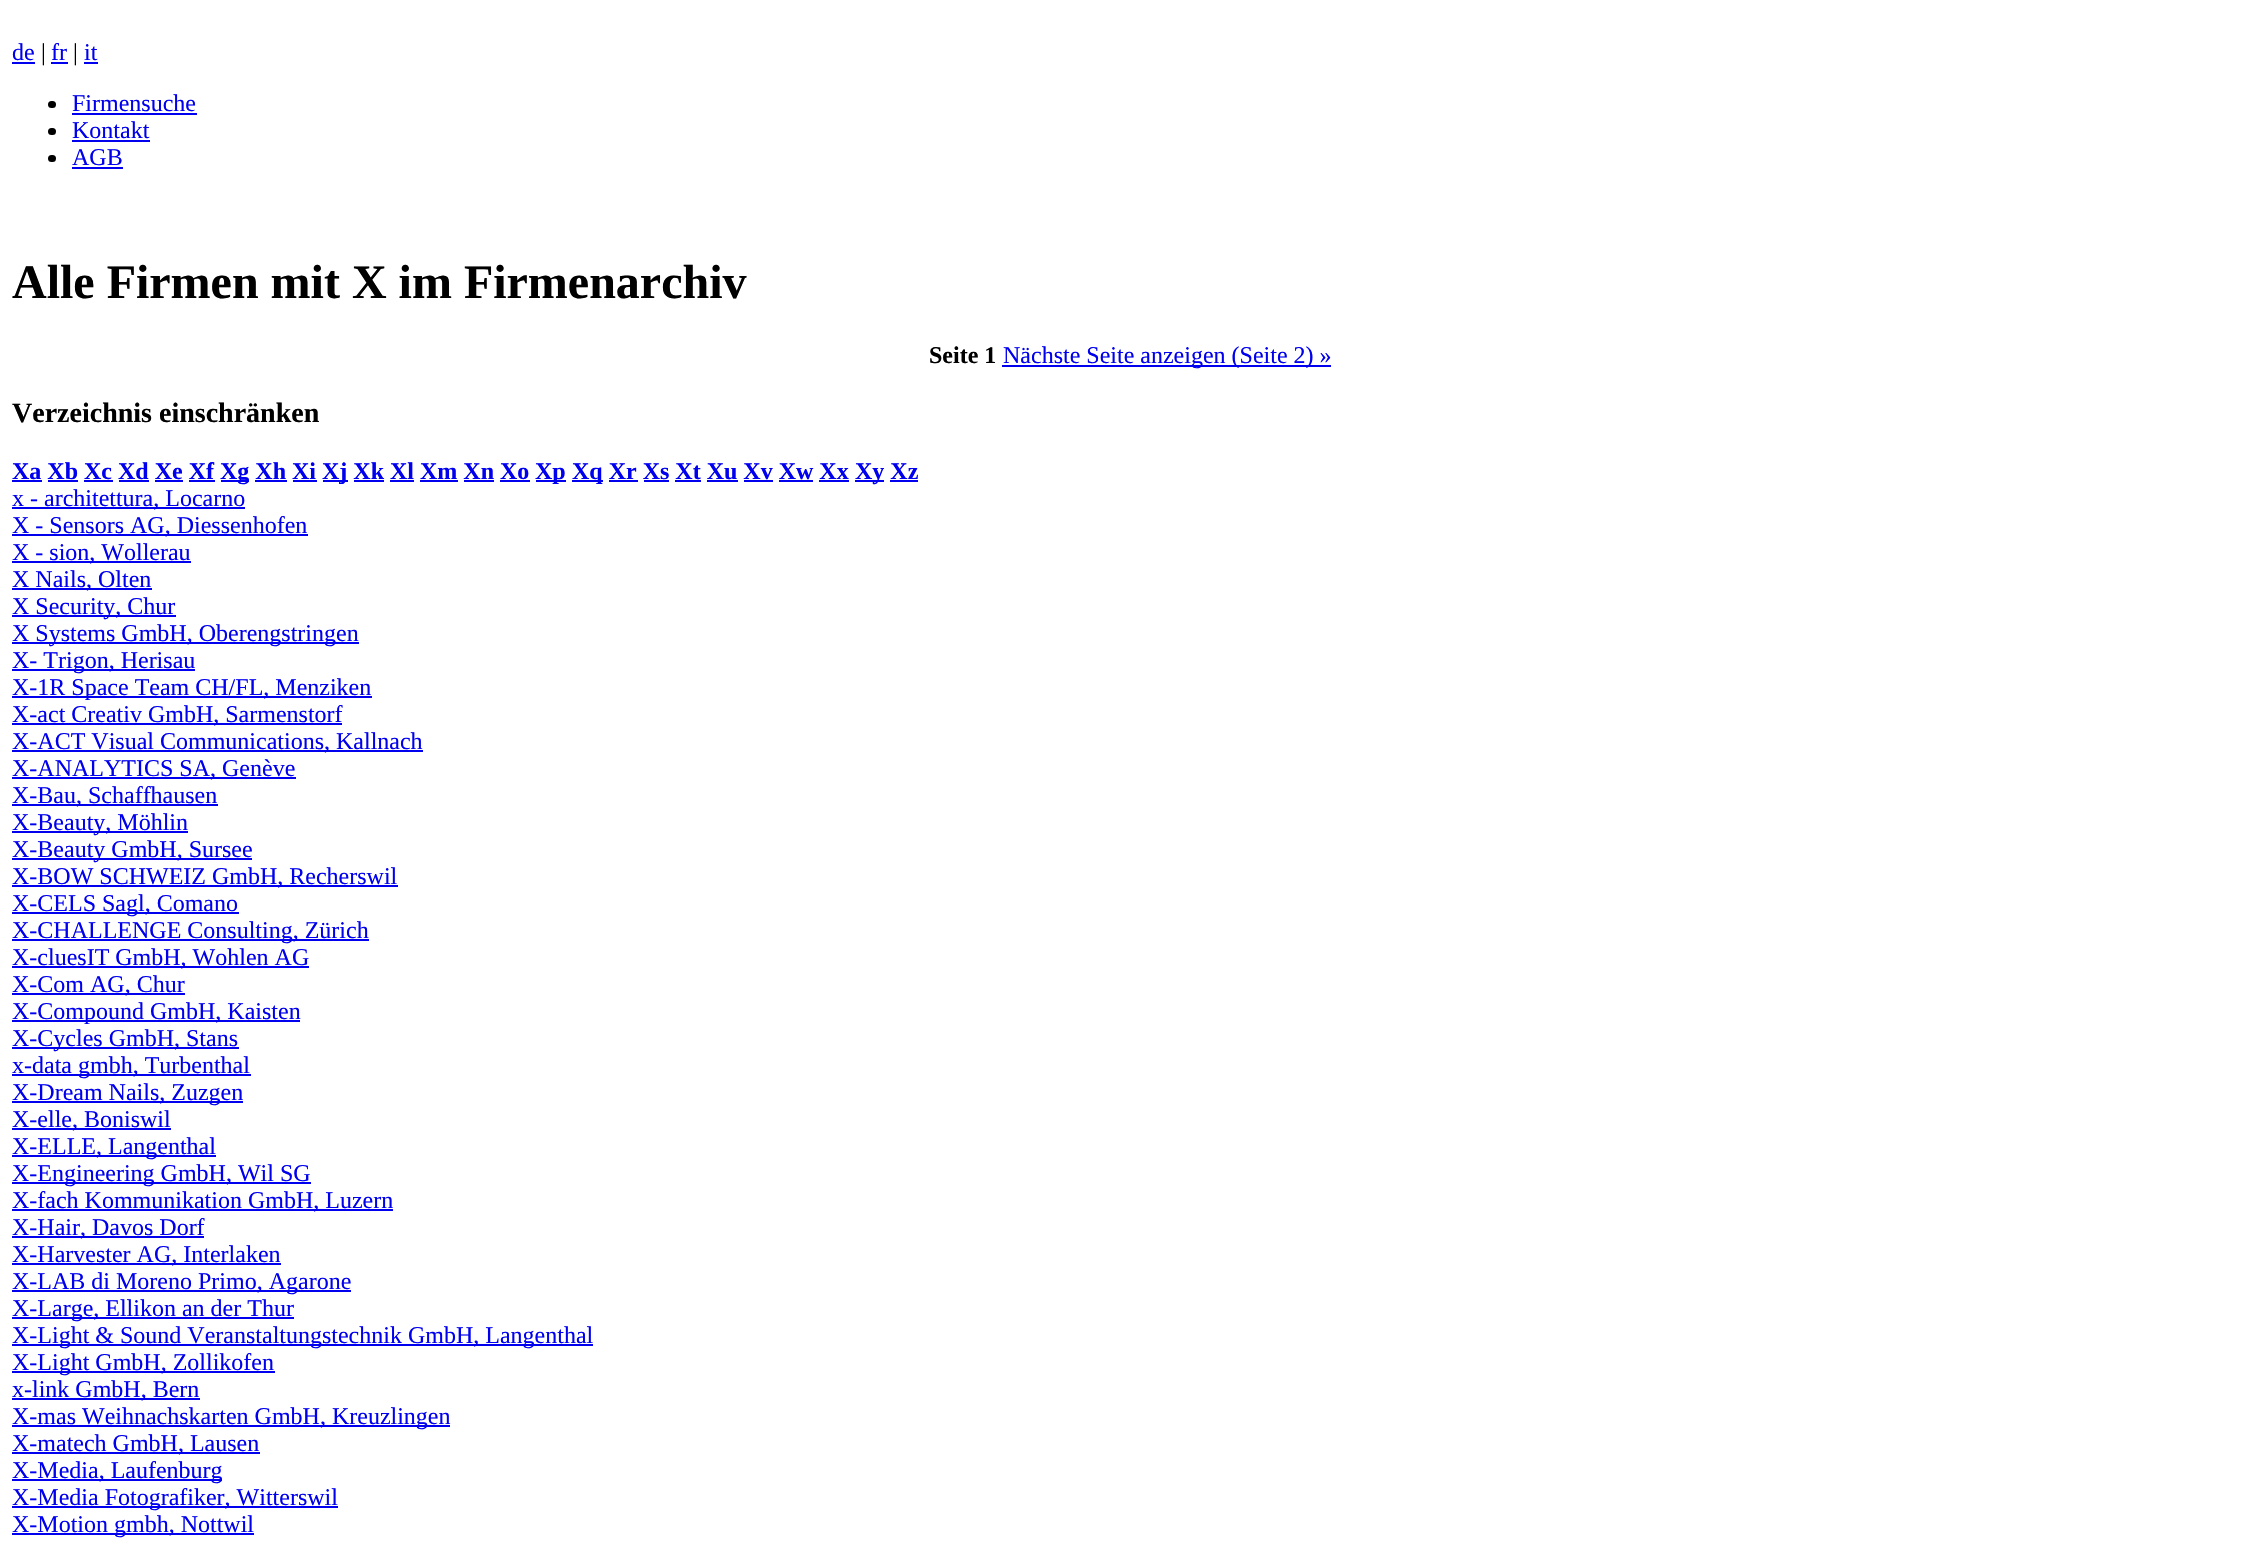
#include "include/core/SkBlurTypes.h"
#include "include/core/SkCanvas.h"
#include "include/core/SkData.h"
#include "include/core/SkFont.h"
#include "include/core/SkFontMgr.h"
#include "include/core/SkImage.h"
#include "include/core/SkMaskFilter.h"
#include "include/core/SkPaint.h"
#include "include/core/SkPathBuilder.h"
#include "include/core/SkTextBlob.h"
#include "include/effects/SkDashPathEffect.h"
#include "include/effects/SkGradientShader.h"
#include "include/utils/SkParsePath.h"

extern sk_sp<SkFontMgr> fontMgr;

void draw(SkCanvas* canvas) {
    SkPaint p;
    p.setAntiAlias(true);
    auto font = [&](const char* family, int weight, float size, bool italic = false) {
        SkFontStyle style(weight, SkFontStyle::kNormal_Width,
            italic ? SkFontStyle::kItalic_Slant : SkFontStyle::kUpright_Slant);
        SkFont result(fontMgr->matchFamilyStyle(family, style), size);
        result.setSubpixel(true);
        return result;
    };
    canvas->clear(0xFFFFFFFF);
    auto font1 = font("Liberation Serif", 400, 24);
    p.setColor(0xFF0000EE);
    canvas->drawString("de", 12, 60, font1, p);
    canvas->drawRect(SkRect::MakeLTRB(12, 62, 35, 64), p);
    p.setColor(0xFF000000);
    canvas->drawString("|", 41, 60, font1, p);
    p.setColor(0xFF0000EE);
    canvas->drawString("fr", 51, 60, font1, p);
    canvas->drawRect(SkRect::MakeLTRB(51, 62, 68, 64), p);
    p.setColor(0xFF000000);
    canvas->drawString("|", 73, 60, font1, p);
    p.setColor(0xFF0000EE);
    canvas->drawString("it", 84, 60, font1, p);
    canvas->drawRect(SkRect::MakeLTRB(84, 62, 98, 64), p);
    p.setColor(0xFF000000);
    canvas->drawRoundRect(SkRect::MakeLTRB(48, 101, 56, 108), 3.5f, 3.5f, p);
    p.setColor(0xFF0000EE);
    canvas->drawString("Firmensuche", 72, 111, font1, p);
    canvas->drawRect(SkRect::MakeLTRB(72, 113, 197, 115), p);
    p.setColor(0xFF000000);
    canvas->drawRoundRect(SkRect::MakeLTRB(48, 128, 56, 135), 3.5f, 3.5f, p);
    p.setColor(0xFF0000EE);
    canvas->drawString("Kontakt", 72, 138, font1, p);
    canvas->drawRect(SkRect::MakeLTRB(72, 140, 150, 142), p);
    p.setColor(0xFF000000);
    canvas->drawRoundRect(SkRect::MakeLTRB(48, 155, 56, 162), 3.5f, 3.5f, p);
    p.setColor(0xFF0000EE);
    canvas->drawString("AGB", 72, 165, font1, p);
    canvas->drawRect(SkRect::MakeLTRB(72, 167, 123, 169), p);
    auto font2 = font("Liberation Serif", 700, 48);
    p.setColor(0xFF000000);
    canvas->drawString("Alle Firmen mit X im Firmenarchiv", 12, 298, font2, p);
    auto font3 = font("Liberation Serif", 700, 24);
    canvas->drawString("Seite 1", 929, 363, font3, p);
    p.setColor(0xFF0000EE);
    canvas->drawRect(SkRect::MakeLTRB(1002, 365, 1331, 367), p);
    canvas->drawString("Nächste Seite anzeigen (Seite 2) »", 1003, 363, font1, p);
    auto font4 = font("Liberation Serif", 700, 28);
    p.setColor(0xFF000000);
    canvas->drawString("Verzeichnis einschränken", 12, 422, font4, p);
    p.setColor(0xFF0000EE);
    canvas->drawString("Xa Xb Xc Xd Xe Xf", 12, 479, font3, p);
    canvas->drawRect(SkRect::MakeLTRB(12, 480, 42, 482), p);
    canvas->drawRect(SkRect::MakeLTRB(221, 480, 249, 482), p);
    canvas->drawString("Xg Xh Xi", 220, 479, font3, p);
    canvas->drawRect(SkRect::MakeLTRB(323, 480, 348, 482), p);
    canvas->drawString("Xj Xk Xl Xm Xn Xo", 322, 479, font3, p);
    canvas->drawRect(SkRect::MakeLTRB(536, 480, 566, 482), p);
    canvas->drawString("Xp", 535, 479, font3, p);
    canvas->drawRect(SkRect::MakeLTRB(572, 480, 603, 482), p);
    canvas->drawString("Xq Xr Xs Xt Xu Xv Xw Xx", 572, 479, font3, p);
    canvas->drawRect(SkRect::MakeLTRB(855, 480, 884, 482), p);
    canvas->drawString("Xy Xz", 855, 479, font3, p);
    {
        const struct { float l, t, r, b; SkColor color; } items[] = {
            {48, 480, 78, 482, 0xFF0000EE},
            {84, 480, 113, 482, 0xFF0000EE},
            {119, 480, 149, 482, 0xFF0000EE},
            {155, 480, 183, 482, 0xFF0000EE},
            {189, 480, 215, 482, 0xFF0000EE},
            {255, 480, 287, 482, 0xFF0000EE},
            {293, 480, 317, 482, 0xFF0000EE},
            {354, 480, 384, 482, 0xFF0000EE},
            {390, 480, 414, 482, 0xFF0000EE},
            {420, 480, 458, 482, 0xFF0000EE},
            {464, 480, 494, 482, 0xFF0000EE},
            {500, 480, 530, 482, 0xFF0000EE},
            {609, 480, 638, 482, 0xFF0000EE},
            {644, 480, 669, 482, 0xFF0000EE},
            {675, 480, 701, 482, 0xFF0000EE},
            {707, 480, 738, 482, 0xFF0000EE},
            {744, 480, 773, 482, 0xFF0000EE},
            {779, 480, 813, 482, 0xFF0000EE},
            {819, 480, 849, 482, 0xFF0000EE},
            {890, 480, 918, 482, 0xFF0000EE},
            {12, 507, 245, 509, 0xFF0000EE},
        };
        for (auto [l, t, r, b, color] : items) {
            p.setColor(color);
            canvas->drawRect(SkRect::MakeLTRB(l, t, r, b), p);
        }
    }
    canvas->drawString("x - architettura, Locarno", 12, 506, font1, p);
    canvas->drawRect(SkRect::MakeLTRB(12, 534, 308, 536), p);
    canvas->drawString("X - Sensors AG, Diessenhofen", 12, 533, font1, p);
    canvas->drawRect(SkRect::MakeLTRB(12, 561, 191, 563), p);
    canvas->drawString("X - sion, Wollerau", 12, 560, font1, p);
    canvas->drawRect(SkRect::MakeLTRB(12, 588, 152, 590), p);
    canvas->drawString("X Nails, Olten", 12, 587, font1, p);
    canvas->drawRect(SkRect::MakeLTRB(12, 615, 176, 617), p);
    canvas->drawString("X Security, Chur", 12, 614, font1, p);
    canvas->drawRect(SkRect::MakeLTRB(12, 642, 359, 644), p);
    canvas->drawString("X Systems GmbH, Oberengstringen", 12, 641, font1, p);
    canvas->drawRect(SkRect::MakeLTRB(12, 669, 195, 671), p);
    canvas->drawString("X- Trigon, Herisau", 12, 668, font1, p);
    canvas->drawRect(SkRect::MakeLTRB(12, 696, 372, 698), p);
    canvas->drawString("X-1R Space Team CH/FL, Menziken", 12, 695, font1, p);
    canvas->drawRect(SkRect::MakeLTRB(12, 723, 342, 725), p);
    canvas->drawString("X-act Creativ GmbH, Sarmenstorf", 12, 722, font1, p);
    canvas->drawRect(SkRect::MakeLTRB(12, 750, 423, 752), p);
    canvas->drawString("X-ACT Visual Communications, Kallnach", 12, 749, font1, p);
    canvas->drawRect(SkRect::MakeLTRB(12, 777, 296, 779), p);
    canvas->drawString("X-ANALYTICS SA, Genève", 12, 776, font1, p);
    canvas->drawRect(SkRect::MakeLTRB(12, 804, 218, 806), p);
    canvas->drawString("X-Bau, Schaffhausen", 12, 803, font1, p);
    canvas->drawRect(SkRect::MakeLTRB(12, 831, 188, 833), p);
    canvas->drawString("X-Beauty, Möhlin", 12, 830, font1, p);
    canvas->drawRect(SkRect::MakeLTRB(12, 858, 252, 860), p);
    canvas->drawString("X-Beauty GmbH, Sursee", 12, 857, font1, p);
    canvas->drawRect(SkRect::MakeLTRB(12, 885, 398, 887), p);
    canvas->drawString("X-BOW SCHWEIZ GmbH, Recherswil", 12, 884, font1, p);
    canvas->drawRect(SkRect::MakeLTRB(12, 912, 239, 914), p);
    canvas->drawString("X-CELS Sagl, Comano", 12, 911, font1, p);
    canvas->drawRect(SkRect::MakeLTRB(12, 939, 369, 941), p);
    canvas->drawString("X-CHALLENGE Consulting, Zürich", 12, 938, font1, p);
    canvas->drawRect(SkRect::MakeLTRB(12, 966, 309, 968), p);
    canvas->drawString("X-cluesIT GmbH, Wohlen AG", 12, 965, font1, p);
    canvas->drawRect(SkRect::MakeLTRB(12, 993, 185, 995), p);
    canvas->drawString("X-Com AG, Chur", 12, 992, font1, p);
    canvas->drawRect(SkRect::MakeLTRB(12, 1020, 300, 1022), p);
    canvas->drawString("X-Compound GmbH, Kaisten", 12, 1019, font1, p);
    canvas->drawRect(SkRect::MakeLTRB(12, 1047, 239, 1049), p);
    canvas->drawString("X-Cycles GmbH, Stans", 12, 1046, font1, p);
    canvas->drawRect(SkRect::MakeLTRB(12, 1074, 251, 1076), p);
    canvas->drawString("x-data gmbh, Turbenthal", 12, 1073, font1, p);
    canvas->drawRect(SkRect::MakeLTRB(12, 1101, 243, 1103), p);
    canvas->drawString("X-Dream Nails, Zuzgen", 12, 1100, font1, p);
    canvas->drawRect(SkRect::MakeLTRB(12, 1128, 171, 1130), p);
    canvas->drawString("X-elle, Boniswil", 12, 1127, font1, p);
    canvas->drawRect(SkRect::MakeLTRB(12, 1155, 216, 1157), p);
    canvas->drawString("X-ELLE, Langenthal", 12, 1154, font1, p);
    canvas->drawRect(SkRect::MakeLTRB(12, 1182, 311, 1184), p);
    canvas->drawString("X-Engineering GmbH, Wil SG", 12, 1181, font1, p);
    canvas->drawRect(SkRect::MakeLTRB(12, 1209, 393, 1211), p);
    canvas->drawString("X-fach Kommunikation GmbH, Luzern", 12, 1208, font1, p);
    canvas->drawRect(SkRect::MakeLTRB(12, 1236, 204, 1238), p);
    canvas->drawString("X-Hair, Davos Dorf", 12, 1235, font1, p);
    canvas->drawRect(SkRect::MakeLTRB(12, 1263, 281, 1265), p);
    canvas->drawString("X-Harvester AG, Interlaken", 12, 1262, font1, p);
    canvas->drawRect(SkRect::MakeLTRB(12, 1290, 351, 1292), p);
    canvas->drawString("X-LAB di Moreno Primo, Agarone", 12, 1289, font1, p);
    canvas->drawRect(SkRect::MakeLTRB(12, 1317, 294, 1319), p);
    canvas->drawString("X-Large, Ellikon an der Thur", 12, 1316, font1, p);
    canvas->drawRect(SkRect::MakeLTRB(12, 1344, 593, 1346), p);
    canvas->drawString("X-Light & Sound Veranstaltungstechnik GmbH, Langenthal", 12, 1343, font1, p);
    canvas->drawRect(SkRect::MakeLTRB(12, 1371, 275, 1373), p);
    canvas->drawString("X-Light GmbH, Zollikofen", 12, 1370, font1, p);
    canvas->drawRect(SkRect::MakeLTRB(12, 1398, 200, 1400), p);
    canvas->drawString("x-link GmbH, Bern", 12, 1397, font1, p);
    canvas->drawRect(SkRect::MakeLTRB(12, 1425, 450, 1427), p);
    canvas->drawString("X-mas Weihnachskarten GmbH, Kreuzlingen", 12, 1424, font1, p);
    canvas->drawRect(SkRect::MakeLTRB(12, 1452, 260, 1454), p);
    canvas->drawString("X-matech GmbH, Lausen", 12, 1451, font1, p);
    canvas->drawRect(SkRect::MakeLTRB(12, 1479, 222, 1481), p);
    canvas->drawString("X-Media, Laufenburg", 12, 1478, font1, p);
    canvas->drawRect(SkRect::MakeLTRB(12, 1506, 338, 1508), p);
    canvas->drawString("X-Media Fotografiker, Witterswil", 12, 1505, font1, p);
    canvas->drawRect(SkRect::MakeLTRB(12, 1533, 254, 1535), p);
    canvas->drawString("X-Motion gmbh, Nottwil", 12, 1532, font1, p);
}
